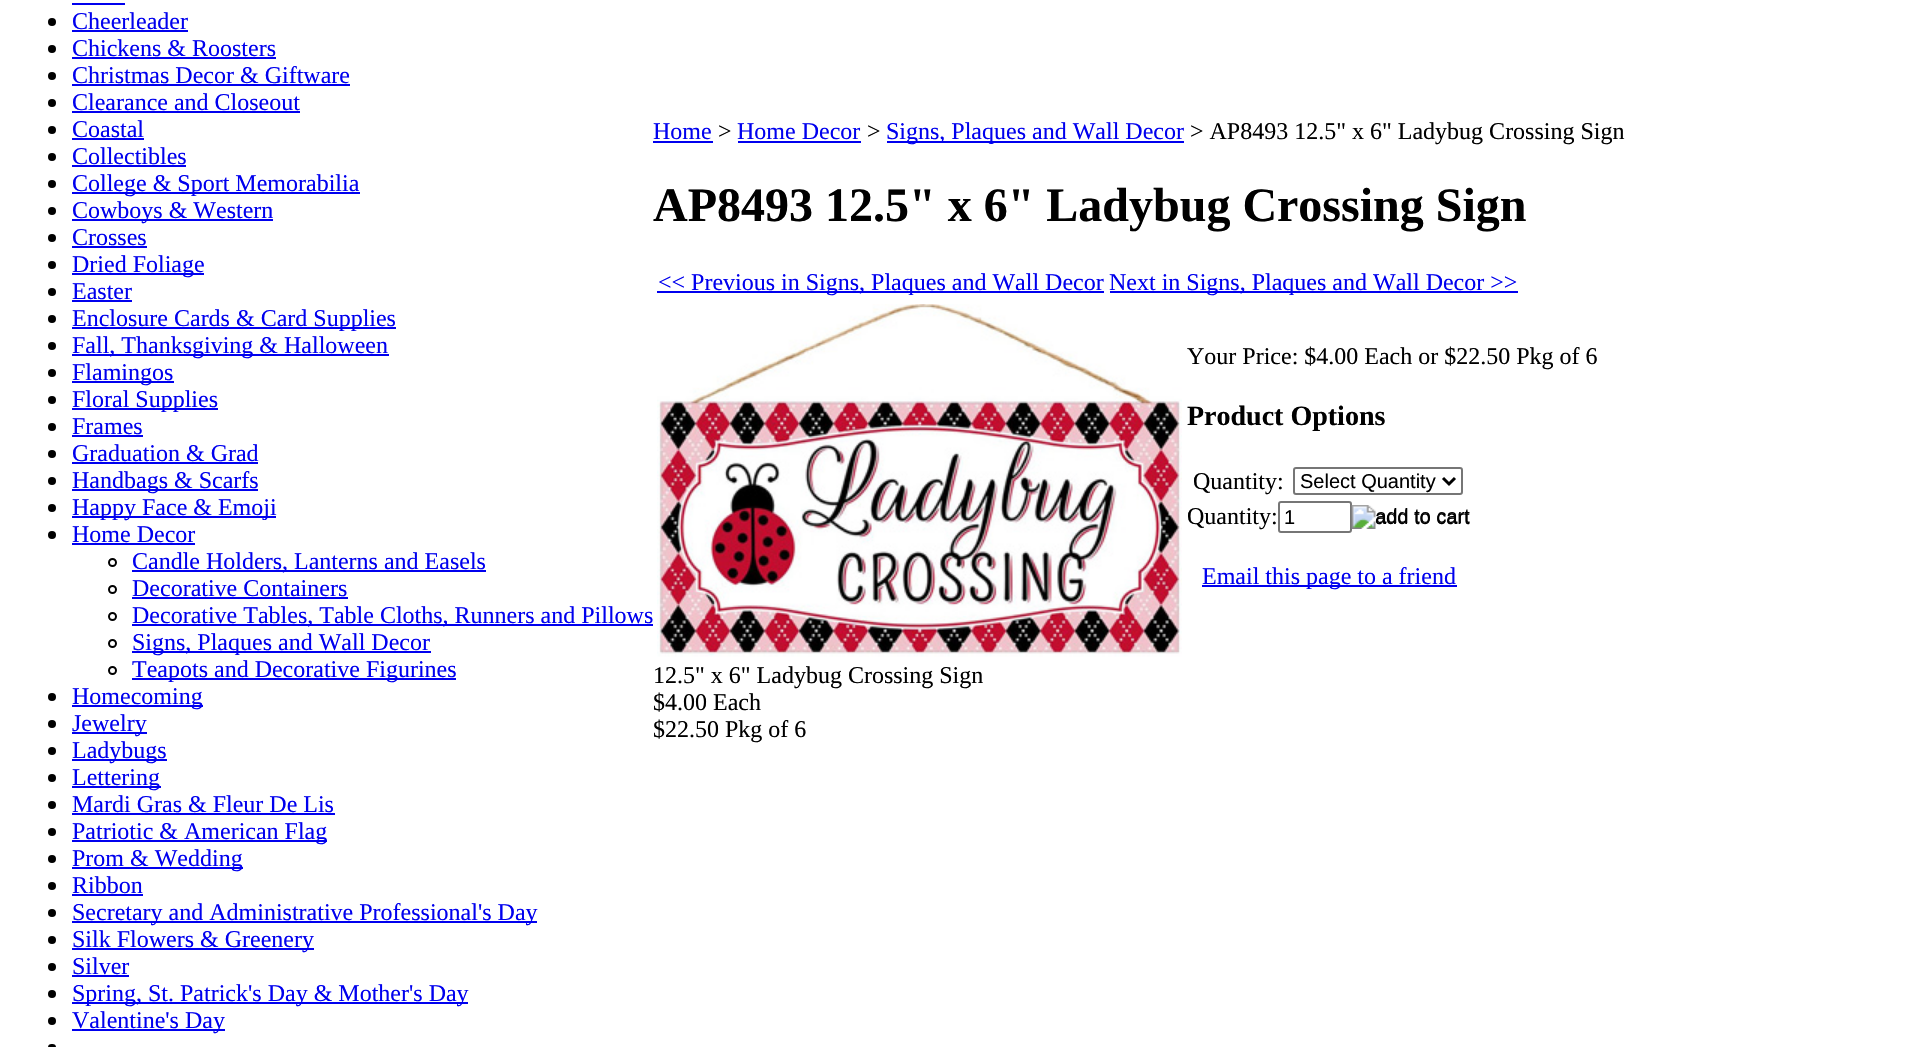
#include "include/core/SkBlurTypes.h"
#include "include/core/SkCanvas.h"
#include "include/core/SkData.h"
#include "include/core/SkFont.h"
#include "include/core/SkFontMgr.h"
#include "include/core/SkImage.h"
#include "include/core/SkMaskFilter.h"
#include "include/core/SkPaint.h"
#include "include/core/SkPathBuilder.h"
#include "include/core/SkTextBlob.h"
#include "include/effects/SkDashPathEffect.h"
#include "include/effects/SkGradientShader.h"
#include "include/utils/SkParsePath.h"

extern sk_sp<SkFontMgr> fontMgr;

void draw(SkCanvas* canvas) {
    SkPaint p;
    p.setAntiAlias(true);
    auto font = [&](const char* family, int weight, float size, bool italic = false) {
        SkFontStyle style(weight, SkFontStyle::kNormal_Width,
            italic ? SkFontStyle::kItalic_Slant : SkFontStyle::kUpright_Slant);
        SkFont result(fontMgr->matchFamilyStyle(family, style), size);
        result.setSubpixel(true);
        return result;
    };
    auto drawPhoto = [&](const char* path, float l, float t, float r, float b) {
        auto image = SkImages::DeferredFromEncodedData(SkData::MakeFromFileName(path));
        canvas->drawImageRect(image, SkRect::MakeLTRB(l, t, r, b), SkSamplingOptions());
    };
    canvas->clear(0xFFFFFFFF);
    p.setColor(0xFF0000EE);
    canvas->drawRect(SkRect::MakeLTRB(72, 3, 125, 5), p);
    p.setColor(0xFF000000);
    canvas->drawCircle(52, 22, 4, p);
    auto font1 = font("Liberation Serif", 400, 24);
    p.setColor(0xFF0000EE);
    canvas->drawString("Cheerleader", 72, 29, font1, p);
    canvas->drawRect(SkRect::MakeLTRB(72, 30, 188, 32), p);
    p.setColor(0xFF000000);
    canvas->drawCircle(52, 49, 4, p);
    p.setColor(0xFF0000EE);
    canvas->drawString("Chickens & Roosters", 72, 56, font1, p);
    canvas->drawRect(SkRect::MakeLTRB(72, 57, 276, 59), p);
    p.setColor(0xFF000000);
    canvas->drawCircle(52, 76, 4, p);
    p.setColor(0xFF0000EE);
    canvas->drawString("Christmas Decor & Giftware", 72, 83, font1, p);
    canvas->drawRect(SkRect::MakeLTRB(72, 84, 350, 86), p);
    p.setColor(0xFF000000);
    canvas->drawCircle(52, 103, 4, p);
    p.setColor(0xFF0000EE);
    canvas->drawString("Clearance and Closeout", 72, 110, font1, p);
    canvas->drawRect(SkRect::MakeLTRB(72, 111, 300, 113), p);
    p.setColor(0xFF000000);
    canvas->drawCircle(52, 130, 4, p);
    p.setColor(0xFF0000EE);
    canvas->drawString("Coastal", 72, 137, font1, p);
    canvas->drawRect(SkRect::MakeLTRB(72, 138, 144, 140), p);
    p.setColor(0xFF000000);
    canvas->drawCircle(52, 157, 4, p);
    p.setColor(0xFF0000EE);
    canvas->drawString("Collectibles", 72, 164, font1, p);
    canvas->drawRect(SkRect::MakeLTRB(72, 165, 186, 167), p);
    p.setColor(0xFF000000);
    canvas->drawCircle(52, 184, 4, p);
    p.setColor(0xFF0000EE);
    canvas->drawRect(SkRect::MakeLTRB(72, 192, 360, 194), p);
    canvas->drawString("College & Sport Memorabilia", 72, 191, font1, p);
    p.setColor(0xFF000000);
    canvas->drawCircle(52, 211, 4, p);
    p.setColor(0xFF0000EE);
    canvas->drawRect(SkRect::MakeLTRB(72, 219, 273, 221), p);
    canvas->drawString("Cowboys & Western", 72, 218, font1, p);
    p.setColor(0xFF000000);
    canvas->drawCircle(52, 238, 4, p);
    p.setColor(0xFF0000EE);
    canvas->drawString("Crosses", 72, 245, font1, p);
    canvas->drawRect(SkRect::MakeLTRB(72, 246, 147, 248), p);
    p.setColor(0xFF000000);
    canvas->drawCircle(52, 265, 4, p);
    p.setColor(0xFF0000EE);
    canvas->drawRect(SkRect::MakeLTRB(72, 273, 204, 275), p);
    canvas->drawString("Dried Foliage", 72, 272, font1, p);
    p.setColor(0xFF000000);
    canvas->drawCircle(52, 292, 4, p);
    p.setColor(0xFF0000EE);
    canvas->drawString("Easter", 72, 299, font1, p);
    canvas->drawRect(SkRect::MakeLTRB(72, 300, 132, 302), p);
    p.setColor(0xFF000000);
    canvas->drawCircle(52, 319, 4, p);
    p.setColor(0xFF0000EE);
    canvas->drawRect(SkRect::MakeLTRB(72, 327, 396, 329), p);
    canvas->drawString("Enclosure Cards & Card Supplies", 72, 326, font1, p);
    p.setColor(0xFF000000);
    canvas->drawCircle(52, 346, 4, p);
    p.setColor(0xFF0000EE);
    canvas->drawRect(SkRect::MakeLTRB(72, 354, 389, 356), p);
    canvas->drawString("Fall, Thanksgiving & Halloween", 72, 353, font1, p);
    p.setColor(0xFF000000);
    canvas->drawCircle(52, 373, 4, p);
    p.setColor(0xFF0000EE);
    canvas->drawRect(SkRect::MakeLTRB(72, 381, 174, 383), p);
    canvas->drawString("Flamingos", 72, 380, font1, p);
    p.setColor(0xFF000000);
    canvas->drawCircle(52, 400, 4, p);
    p.setColor(0xFF0000EE);
    canvas->drawRect(SkRect::MakeLTRB(72, 408, 218, 410), p);
    canvas->drawString("Floral Supplies", 72, 407, font1, p);
    p.setColor(0xFF000000);
    canvas->drawCircle(52, 427, 4, p);
    p.setColor(0xFF0000EE);
    canvas->drawString("Frames", 72, 434, font1, p);
    canvas->drawRect(SkRect::MakeLTRB(72, 435, 143, 437), p);
    p.setColor(0xFF000000);
    canvas->drawCircle(52, 454, 4, p);
    p.setColor(0xFF0000EE);
    canvas->drawString("Graduation & Grad", 72, 461, font1, p);
    canvas->drawRect(SkRect::MakeLTRB(72, 462, 258, 464), p);
    p.setColor(0xFF000000);
    canvas->drawCircle(52, 481, 4, p);
    p.setColor(0xFF0000EE);
    canvas->drawRect(SkRect::MakeLTRB(72, 489, 258, 491), p);
    canvas->drawString("Handbags & Scarfs", 72, 488, font1, p);
    p.setColor(0xFF000000);
    canvas->drawCircle(52, 508, 4, p);
    p.setColor(0xFF0000EE);
    canvas->drawRect(SkRect::MakeLTRB(72, 516, 276, 518), p);
    canvas->drawString("Happy Face & Emoji", 72, 515, font1, p);
    p.setColor(0xFF000000);
    canvas->drawCircle(52, 535, 4, p);
    p.setColor(0xFF0000EE);
    canvas->drawString("Home Decor", 72, 542, font1, p);
    canvas->drawRect(SkRect::MakeLTRB(72, 543, 195, 545), p);
    p.setStyle(SkPaint::kStroke_Style);
    p.setStrokeWidth(2);
    p.setColor(0xFF000000);
    canvas->drawCircle(112.5f, 562.5f, 3.5f, p);
    p.setStyle(SkPaint::kFill_Style);
    p.setColor(0xFF0000EE);
    canvas->drawRect(SkRect::MakeLTRB(132, 570, 486, 572), p);
    canvas->drawString("Candle Holders, Lanterns and Easels", 132, 569, font1, p);
    p.setStyle(SkPaint::kStroke_Style);
    p.setColor(0xFF000000);
    canvas->drawCircle(112.5f, 589.5f, 3.5f, p);
    p.setStyle(SkPaint::kFill_Style);
    p.setColor(0xFF0000EE);
    canvas->drawString("Decorative Containers", 132, 596, font1, p);
    canvas->drawRect(SkRect::MakeLTRB(132, 597, 348, 599), p);
    p.setStyle(SkPaint::kStroke_Style);
    p.setColor(0xFF000000);
    canvas->drawCircle(112.5f, 616.5f, 3.5f, p);
    p.setStyle(SkPaint::kFill_Style);
    p.setColor(0xFF0000EE);
    canvas->drawRect(SkRect::MakeLTRB(132, 624, 653, 626), p);
    canvas->drawString("Decorative Tables, Table Cloths, Runners and Pillows", 132, 623, font1, p);
    p.setStyle(SkPaint::kStroke_Style);
    p.setColor(0xFF000000);
    canvas->drawCircle(112.5f, 643.5f, 3.5f, p);
    p.setStyle(SkPaint::kFill_Style);
    p.setColor(0xFF0000EE);
    canvas->drawRect(SkRect::MakeLTRB(132, 651, 431, 653), p);
    canvas->drawString("Signs, Plaques and Wall Decor", 132, 650, font1, p);
    p.setStyle(SkPaint::kStroke_Style);
    p.setColor(0xFF000000);
    canvas->drawCircle(112.5f, 670.5f, 3.5f, p);
    p.setStyle(SkPaint::kFill_Style);
    p.setColor(0xFF0000EE);
    canvas->drawRect(SkRect::MakeLTRB(132, 678, 456, 680), p);
    canvas->drawString("Teapots and Decorative Figurines", 132, 677, font1, p);
    p.setColor(0xFF000000);
    canvas->drawCircle(52, 697, 4, p);
    p.setColor(0xFF0000EE);
    canvas->drawRect(SkRect::MakeLTRB(72, 705, 203, 707), p);
    canvas->drawString("Homecoming", 72, 704, font1, p);
    p.setColor(0xFF000000);
    canvas->drawCircle(52, 724, 4, p);
    p.setColor(0xFF0000EE);
    canvas->drawRect(SkRect::MakeLTRB(72, 732, 147, 734), p);
    canvas->drawString("Jewelry", 72, 731, font1, p);
    p.setColor(0xFF000000);
    canvas->drawCircle(52, 751, 4, p);
    p.setColor(0xFF0000EE);
    canvas->drawRect(SkRect::MakeLTRB(72, 759, 167, 761), p);
    canvas->drawString("Ladybugs", 72, 758, font1, p);
    p.setColor(0xFF000000);
    canvas->drawCircle(52, 778, 4, p);
    p.setColor(0xFF0000EE);
    canvas->drawRect(SkRect::MakeLTRB(72, 786, 161, 788), p);
    canvas->drawString("Lettering", 72, 785, font1, p);
    p.setColor(0xFF000000);
    canvas->drawCircle(52, 805, 4, p);
    p.setColor(0xFF0000EE);
    canvas->drawString("Mardi Gras & Fleur De Lis", 72, 812, font1, p);
    canvas->drawRect(SkRect::MakeLTRB(72, 813, 335, 815), p);
    p.setColor(0xFF000000);
    canvas->drawCircle(52, 832, 4, p);
    p.setColor(0xFF0000EE);
    canvas->drawRect(SkRect::MakeLTRB(72, 840, 327, 842), p);
    canvas->drawString("Patriotic & American Flag", 72, 839, font1, p);
    p.setColor(0xFF000000);
    canvas->drawCircle(52, 859, 4, p);
    p.setColor(0xFF0000EE);
    canvas->drawRect(SkRect::MakeLTRB(72, 867, 243, 869), p);
    canvas->drawString("Prom & Wedding", 72, 866, font1, p);
    p.setColor(0xFF000000);
    canvas->drawCircle(52, 886, 4, p);
    p.setColor(0xFF0000EE);
    canvas->drawString("Ribbon", 72, 893, font1, p);
    canvas->drawRect(SkRect::MakeLTRB(72, 894, 143, 896), p);
    p.setColor(0xFF000000);
    canvas->drawCircle(52, 913, 4, p);
    p.setColor(0xFF0000EE);
    canvas->drawRect(SkRect::MakeLTRB(72, 921, 537, 923), p);
    canvas->drawString("Secretary and Administrative Professional's Day", 72, 920, font1, p);
    p.setColor(0xFF000000);
    canvas->drawCircle(52, 940, 4, p);
    p.setColor(0xFF0000EE);
    canvas->drawRect(SkRect::MakeLTRB(72, 948, 314, 950), p);
    canvas->drawString("Silk Flowers & Greenery", 72, 947, font1, p);
    p.setColor(0xFF000000);
    canvas->drawCircle(52, 967, 4, p);
    p.setColor(0xFF0000EE);
    canvas->drawString("Silver", 72, 974, font1, p);
    canvas->drawRect(SkRect::MakeLTRB(72, 975, 129, 977), p);
    p.setColor(0xFF000000);
    canvas->drawCircle(52, 994, 4, p);
    p.setColor(0xFF0000EE);
    canvas->drawRect(SkRect::MakeLTRB(72, 1002, 468, 1004), p);
    canvas->drawString("Spring, St. Patrick's Day & Mother's Day", 72, 1001, font1, p);
    p.setColor(0xFF000000);
    canvas->drawCircle(52, 1021, 4, p);
    p.setColor(0xFF0000EE);
    canvas->drawRect(SkRect::MakeLTRB(72, 1029, 225, 1031), p);
    canvas->drawString("Valentine's Day", 72, 1028, font1, p);
    p.setColor(0xFF000000);
    canvas->drawRoundRect(SkRect::MakeLTRB(48, 1044, 56, 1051), 4, 4, p);
    p.setColor(0xFF0000EE);
    canvas->drawString("Home", 653, 139, font1, p);
    canvas->drawRect(SkRect::MakeLTRB(653, 141, 713, 143), p);
    p.setColor(0xFF000000);
    canvas->drawString(">", 718, 139, font1, p);
    p.setColor(0xFF0000EE);
    canvas->drawString("Home Decor", 737, 139, font1, p);
    canvas->drawRect(SkRect::MakeLTRB(738, 141, 861, 143), p);
    p.setColor(0xFF000000);
    canvas->drawString(">", 867, 139, font1, p);
    p.setColor(0xFF0000EE);
    canvas->drawRect(SkRect::MakeLTRB(887, 141, 1184, 143), p);
    canvas->drawString("Signs, Plaques and Wall Decor", 886, 139, font1, p);
    p.setColor(0xFF000000);
    canvas->drawString("> AP8493 12.5\" x 6\" Ladybug Crossing Sign", 1190, 139, font1, p);
    auto font2 = font("Liberation Serif", 700, 48);
    canvas->drawString("AP8493 12.5\" x 6\" Ladybug Crossing Sign", 653, 221, font2, p);
    p.setColor(0xFF0000EE);
    canvas->drawRect(SkRect::MakeLTRB(657, 291, 1104, 293), p);
    canvas->drawString("<< Previous in Signs, Plaques and Wall Decor", 658, 290, font1, p);
    canvas->drawRect(SkRect::MakeLTRB(1110, 291, 1518, 293), p);
    canvas->drawString("Next in Signs, Plaques and Wall Decor >>", 1109, 290, font1, p);
    drawPhoto("media/1.png", 657, 304, 1182, 657);
    p.setColor(0xFF000000);
    canvas->drawString("Your Price: $4.00 Each or $22.50 Pkg of 6", 1187, 364, font1, p);
    auto font3 = font("Liberation Serif", 700, 28);
    canvas->drawString("Product Options", 1187, 425, font3, p);
    canvas->drawString("Quantity:", 1193, 489, font1, p);
    p.setStyle(SkPaint::kStroke_Style);
    p.setColor(0xFF767676);
    canvas->drawRoundRect(SkRect::MakeLTRB(1294, 468, 1462, 494), 2, 2, p);
    p.setStrokeWidth(3);
    p.setColor(0xFF000000);
    canvas->drawPath(SkPathBuilder().moveTo(1443, 478).lineTo(1449, 484).lineTo(1455, 478).detach(), p);
    auto font4 = font("Liberation Sans", 400, 20);
    p.setStyle(SkPaint::kFill_Style);
    canvas->drawString("Select Quantity", 1300, 488, font4, p);
    canvas->drawString("Quantity:", 1187, 524, font1, p);
    p.setStyle(SkPaint::kStroke_Style);
    p.setStrokeWidth(2);
    p.setColor(0xFF767676);
    canvas->drawRoundRect(SkRect::MakeLTRB(1279, 502, 1351, 532), 2, 2, p);
    p.setStyle(SkPaint::kFill_Style);
    p.setColor(0xFF000000);
    canvas->drawString("1", 1284, 524, font4, p);
    drawPhoto("media/2.png", 1351, 505, 1470, 529);
    canvas->drawString("add to cart", 1375, 524, font4, p);
    p.setColor(0xFF0000EE);
    canvas->drawRect(SkRect::MakeLTRB(1202, 585, 1457, 587), p);
    canvas->drawString("Email this page to a friend", 1202, 584, font1, p);
    p.setColor(0xFF000000);
    {
        const struct { const char* s; float x, y; } items[] = {
            {"12.5\" x 6\" Ladybug Crossing Sign", 653, 683},
            {"$4.00 Each", 653, 710},
            {"$22.50 Pkg of 6", 653, 737},
        };
        for (auto [s, x, y] : items) {
            canvas->drawString(s, x, y, font1, p);
        }
    }
}
